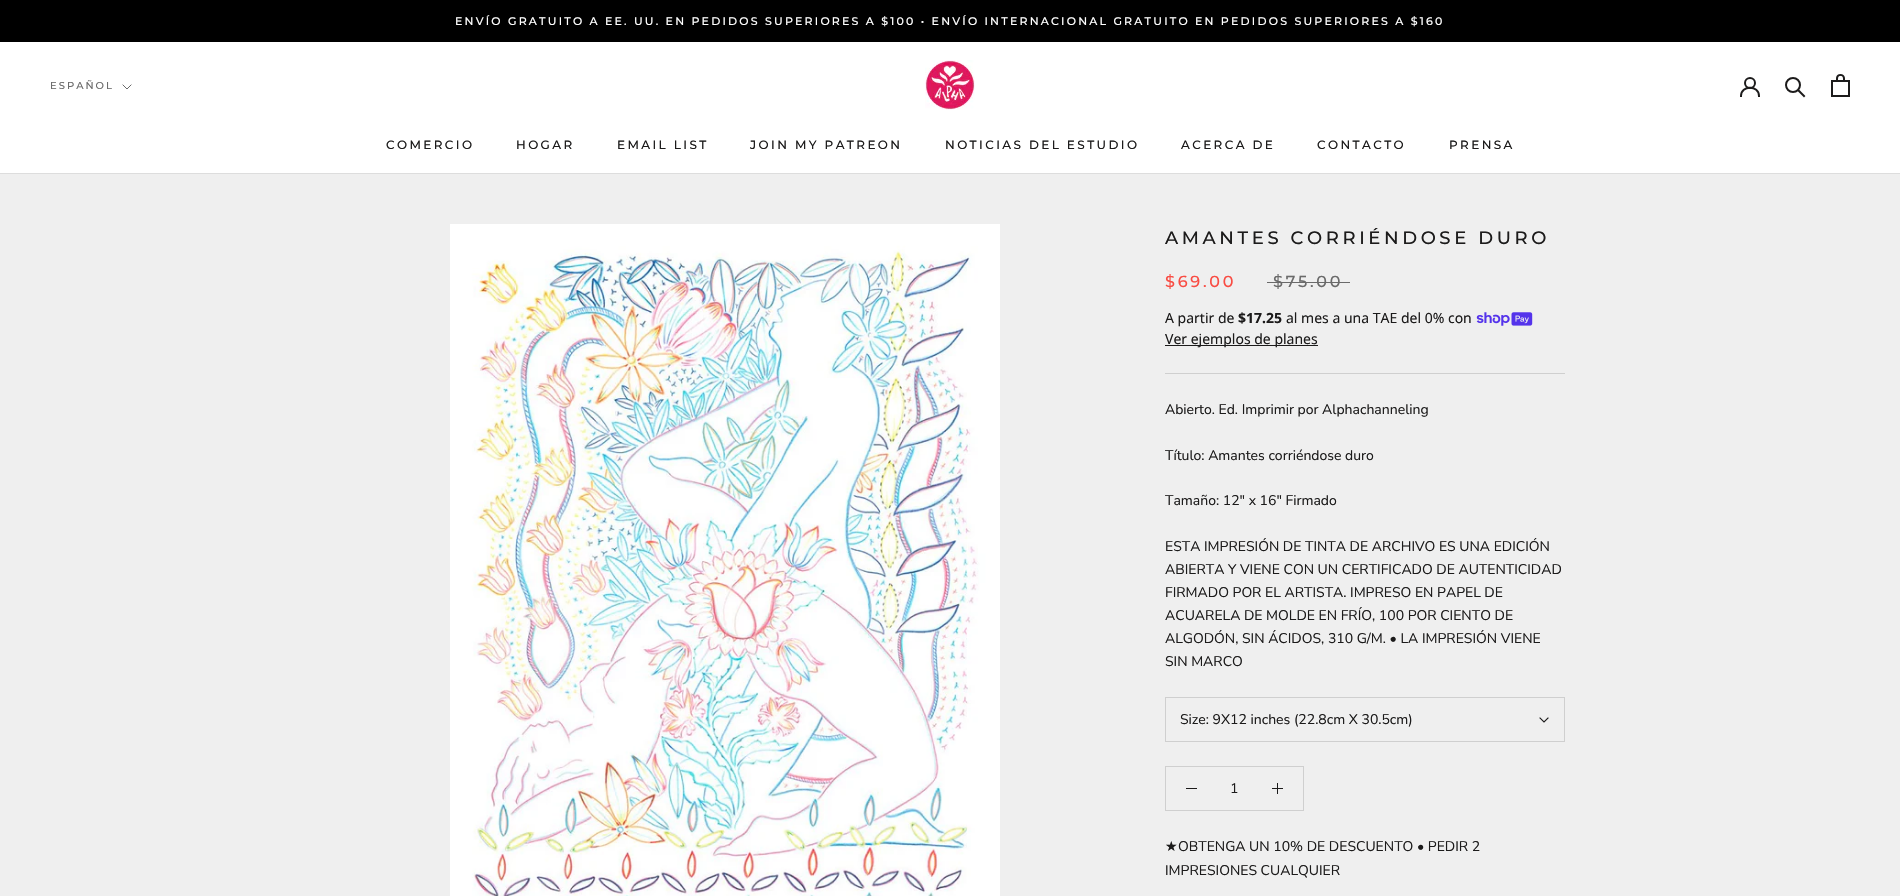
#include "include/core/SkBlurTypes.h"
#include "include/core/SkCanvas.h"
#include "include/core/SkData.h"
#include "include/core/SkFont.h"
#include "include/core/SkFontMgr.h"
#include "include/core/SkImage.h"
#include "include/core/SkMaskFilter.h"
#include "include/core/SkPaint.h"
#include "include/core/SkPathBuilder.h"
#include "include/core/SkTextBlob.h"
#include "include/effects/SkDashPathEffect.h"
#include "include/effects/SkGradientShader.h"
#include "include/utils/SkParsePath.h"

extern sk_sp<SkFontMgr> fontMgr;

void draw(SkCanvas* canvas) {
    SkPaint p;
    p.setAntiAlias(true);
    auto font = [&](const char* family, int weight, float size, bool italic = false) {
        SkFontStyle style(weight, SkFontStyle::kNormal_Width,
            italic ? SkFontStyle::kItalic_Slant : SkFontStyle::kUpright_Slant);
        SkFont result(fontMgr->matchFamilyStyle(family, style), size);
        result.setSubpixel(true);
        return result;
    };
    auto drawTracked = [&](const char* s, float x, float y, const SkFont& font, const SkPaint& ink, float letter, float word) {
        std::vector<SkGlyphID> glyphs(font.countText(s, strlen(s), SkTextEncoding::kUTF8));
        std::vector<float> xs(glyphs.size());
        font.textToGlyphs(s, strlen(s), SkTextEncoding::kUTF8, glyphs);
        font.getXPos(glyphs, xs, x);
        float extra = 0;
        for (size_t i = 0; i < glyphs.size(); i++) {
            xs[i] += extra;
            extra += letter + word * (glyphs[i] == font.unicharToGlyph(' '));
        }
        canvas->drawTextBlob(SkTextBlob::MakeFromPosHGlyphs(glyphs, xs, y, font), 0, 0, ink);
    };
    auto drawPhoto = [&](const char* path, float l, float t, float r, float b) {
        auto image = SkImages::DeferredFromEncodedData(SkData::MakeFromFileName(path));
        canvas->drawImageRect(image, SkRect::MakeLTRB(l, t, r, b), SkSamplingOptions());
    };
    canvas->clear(0xFFEFEFEF);
    p.setColor(0xFF000000);
    canvas->drawRect(SkRect::MakeLTRB(0, 0, 1900, 42), p);
    auto font1 = font("Montserrat", 500, 11);
    p.setColor(0xFFFFFFFF);
    drawTracked("ENVÍO GRATUITO A EE. UU. EN PEDIDOS SUPERIORES A $100 • ENVÍO INTERNACIONAL GRATUITO EN PEDIDOS SUPERIORES A $160", 455, 25, font1, p, 2.2f, 0);
    canvas->drawRect(SkRect::MakeLTRB(0, 42, 1900, 173), p);
    p.setColor(0xFFDDDDDD);
    canvas->drawRect(SkRect::MakeLTRB(0, 173, 1900, 174), p);
    drawPhoto("media/1.png", 925, 60, 975, 110);
    p.setStyle(SkPaint::kStroke_Style);
    p.setStrokeWidth(2);
    p.setStrokeCap(SkPaint::kSquare_Cap);
    p.setColor(0xFF1C1B1B);
    canvas->drawPath(SkPathBuilder().moveTo(1741, 96).cubicTo(1741, 85, 1759, 85, 1759, 96).detach(), p);
    p.setStrokeCap(SkPaint::kButt_Cap);
    canvas->drawCircle(1750, 83, 5, p);
    p.setStrokeCap(SkPaint::kSquare_Cap);
    canvas->drawPath(SkPathBuilder().moveTo(1804, 96).lineTo(1798.5f, 90.5f).detach(), p);
    p.setStrokeCap(SkPaint::kButt_Cap);
    canvas->drawCircle(1793, 85, 7, p);
    drawPhoto("media/2.png", 1831, 74, 1850, 97);
    auto font2 = font("Montserrat", 500, 10);
    p.setStyle(SkPaint::kFill_Style);
    p.setColor(0xFF6A6A6A);
    drawTracked("ESPAÑOL", 50, 89, font2, p, 2, 0);
    p.setStyle(SkPaint::kStroke_Style);
    p.setStrokeWidth(1);
    p.setStrokeCap(SkPaint::kSquare_Cap);
    canvas->drawPath(SkPathBuilder().moveTo(131, 85).lineTo(127, 89).lineTo(123, 85).detach(), p);
    auto font3 = font("Montserrat", 500, 12);
    p.setStyle(SkPaint::kFill_Style);
    p.setColor(0xFF1C1B1B);
    {
        const struct { const char* s; float x, y; } items[] = {
            {"COMERCIO", 386, 149},
            {"HOGAR", 516, 149},
            {"EMAIL LIST", 617, 149},
            {"JOIN MY PATREON", 750, 149},
            {"NOTICIAS DEL ESTUDIO", 945, 149},
            {"ACERCA DE", 1181, 149},
            {"CONTACTO", 1317, 149},
            {"PRENSA", 1449, 149},
        };
        for (auto [s, x, y] : items) {
            drawTracked(s, x, y, font3, p, 2.4f, 0);
        }
    }
    drawPhoto("media/3.png", 450, 224, 1000, 896);
    p.setColor(0xFFCFCFCF);
    canvas->drawRect(SkRect::MakeLTRB(1165, 373, 1565, 374), p);
    auto font4 = font("Montserrat", 500, 18);
    p.setColor(0xFF1C1B1B);
    drawTracked("AMANTES CORRIÉNDOSE DURO", 1165, 244, font4, p, 3.6f, 0);
    auto font5 = font("Montserrat", 500, 16);
    p.setColor(0xFFF94C43);
    drawTracked("$69.00", 1165, 287, font5, p, 2.75f, 0);
    p.setColor(0xFF6A6A6A);
    drawTracked("$75.00", 1273, 287, font5, p, 2.75f, 0);
    canvas->drawRect(SkRect::MakeLTRB(1267, 282, 1350, 283), p);
    auto font6 = font("Noto Sans", 400, 14);
    p.setColor(0xFF1C1B1B);
    canvas->drawString("A partir de", 1165, 323, font6, p);
    auto font7 = font("Noto Sans", 700, 14);
    canvas->drawString("$17.25", 1238, 323, font7, p);
    canvas->drawString("al mes a una TAE del 0% con", 1286, 323, font6, p);
    drawPhoto("media/4.png", 1476, 312, 1533, 326);
    canvas->drawRect(SkRect::MakeLTRB(1165, 345, 1318, 346), p);
    canvas->drawString("Ver ejemplos de planes", 1165, 344, font6, p);
    auto font8 = font("Nunito Sans", 400, 14);
    {
        const struct { const char* s; float x, y; } items[] = {
            {"Abierto. Ed. Imprimir por Alphachanneling", 1165, 414},
            {"Título: Amantes corriéndose duro", 1165, 460},
            {"Tamaño: 12\" x 16\" Firmado", 1165, 505},
            {"ESTA IMPRESIÓN DE TINTA DE ARCHIVO ES UNA EDICIÓN", 1165, 551},
            {"ABIERTA Y VIENE CON UN CERTIFICADO DE AUTENTICIDAD", 1165, 574},
            {"FIRMADO POR EL ARTISTA. IMPRESO EN PAPEL DE", 1165, 597},
            {"ACUARELA DE MOLDE EN FRÍO, 100 POR CIENTO DE", 1165, 620},
            {"ALGODÓN, SIN ÁCIDOS, 310 G/M. • LA IMPRESIÓN VIENE", 1165, 643},
            {"SIN MARCO", 1165, 666},
        };
        for (auto [s, x, y] : items) {
            canvas->drawString(s, x, y, font8, p);
        }
    }
    p.setStyle(SkPaint::kStroke_Style);
    p.setStrokeCap(SkPaint::kButt_Cap);
    p.setColor(0xFFCFCFCF);
    canvas->drawRect(SkRect::MakeLTRB(1165.5f, 697.5f, 1564.5f, 741.5f), p);
    p.setStyle(SkPaint::kFill_Style);
    p.setColor(0xFF1C1B1B);
    canvas->drawString("Size: 9X12 inches (22.8cm X 30.5cm)", 1180, 724, font8, p);
    p.setStyle(SkPaint::kStroke_Style);
    p.setStrokeWidth(1.1f);
    p.setStrokeCap(SkPaint::kSquare_Cap);
    canvas->drawPath(SkPathBuilder().moveTo(1548, 718).lineTo(1544, 722).lineTo(1540, 718).detach(), p);
    p.setStrokeWidth(1);
    p.setStrokeCap(SkPaint::kButt_Cap);
    p.setColor(0xFFCFCFCF);
    canvas->drawRect(SkRect::MakeLTRB(1165.5f, 766.5f, 1303.5f, 810.5f), p);
    p.setStyle(SkPaint::kFill_Style);
    p.setColor(0xFF1C1B1B);
    canvas->drawRect(SkRect::MakeLTRB(1186, 788, 1197, 789), p);
    canvas->drawString("1", 1230, 793, font8, p);
    canvas->drawRect(SkRect::MakeLTRB(1277, 783, 1278, 794), p);
    canvas->drawRect(SkRect::MakeLTRB(1272, 788, 1283, 789), p);
    auto font9 = font("DejaVu Sans", 400, 14);
    canvas->drawString("★", 1165, 851, font9, p);
    canvas->drawString("OBTENGA UN 10% DE DESCUENTO • PEDIR 2", 1178, 851, font8, p);
    canvas->drawString("IMPRESIONES CUALQUIER", 1165, 875, font8, p);
}
